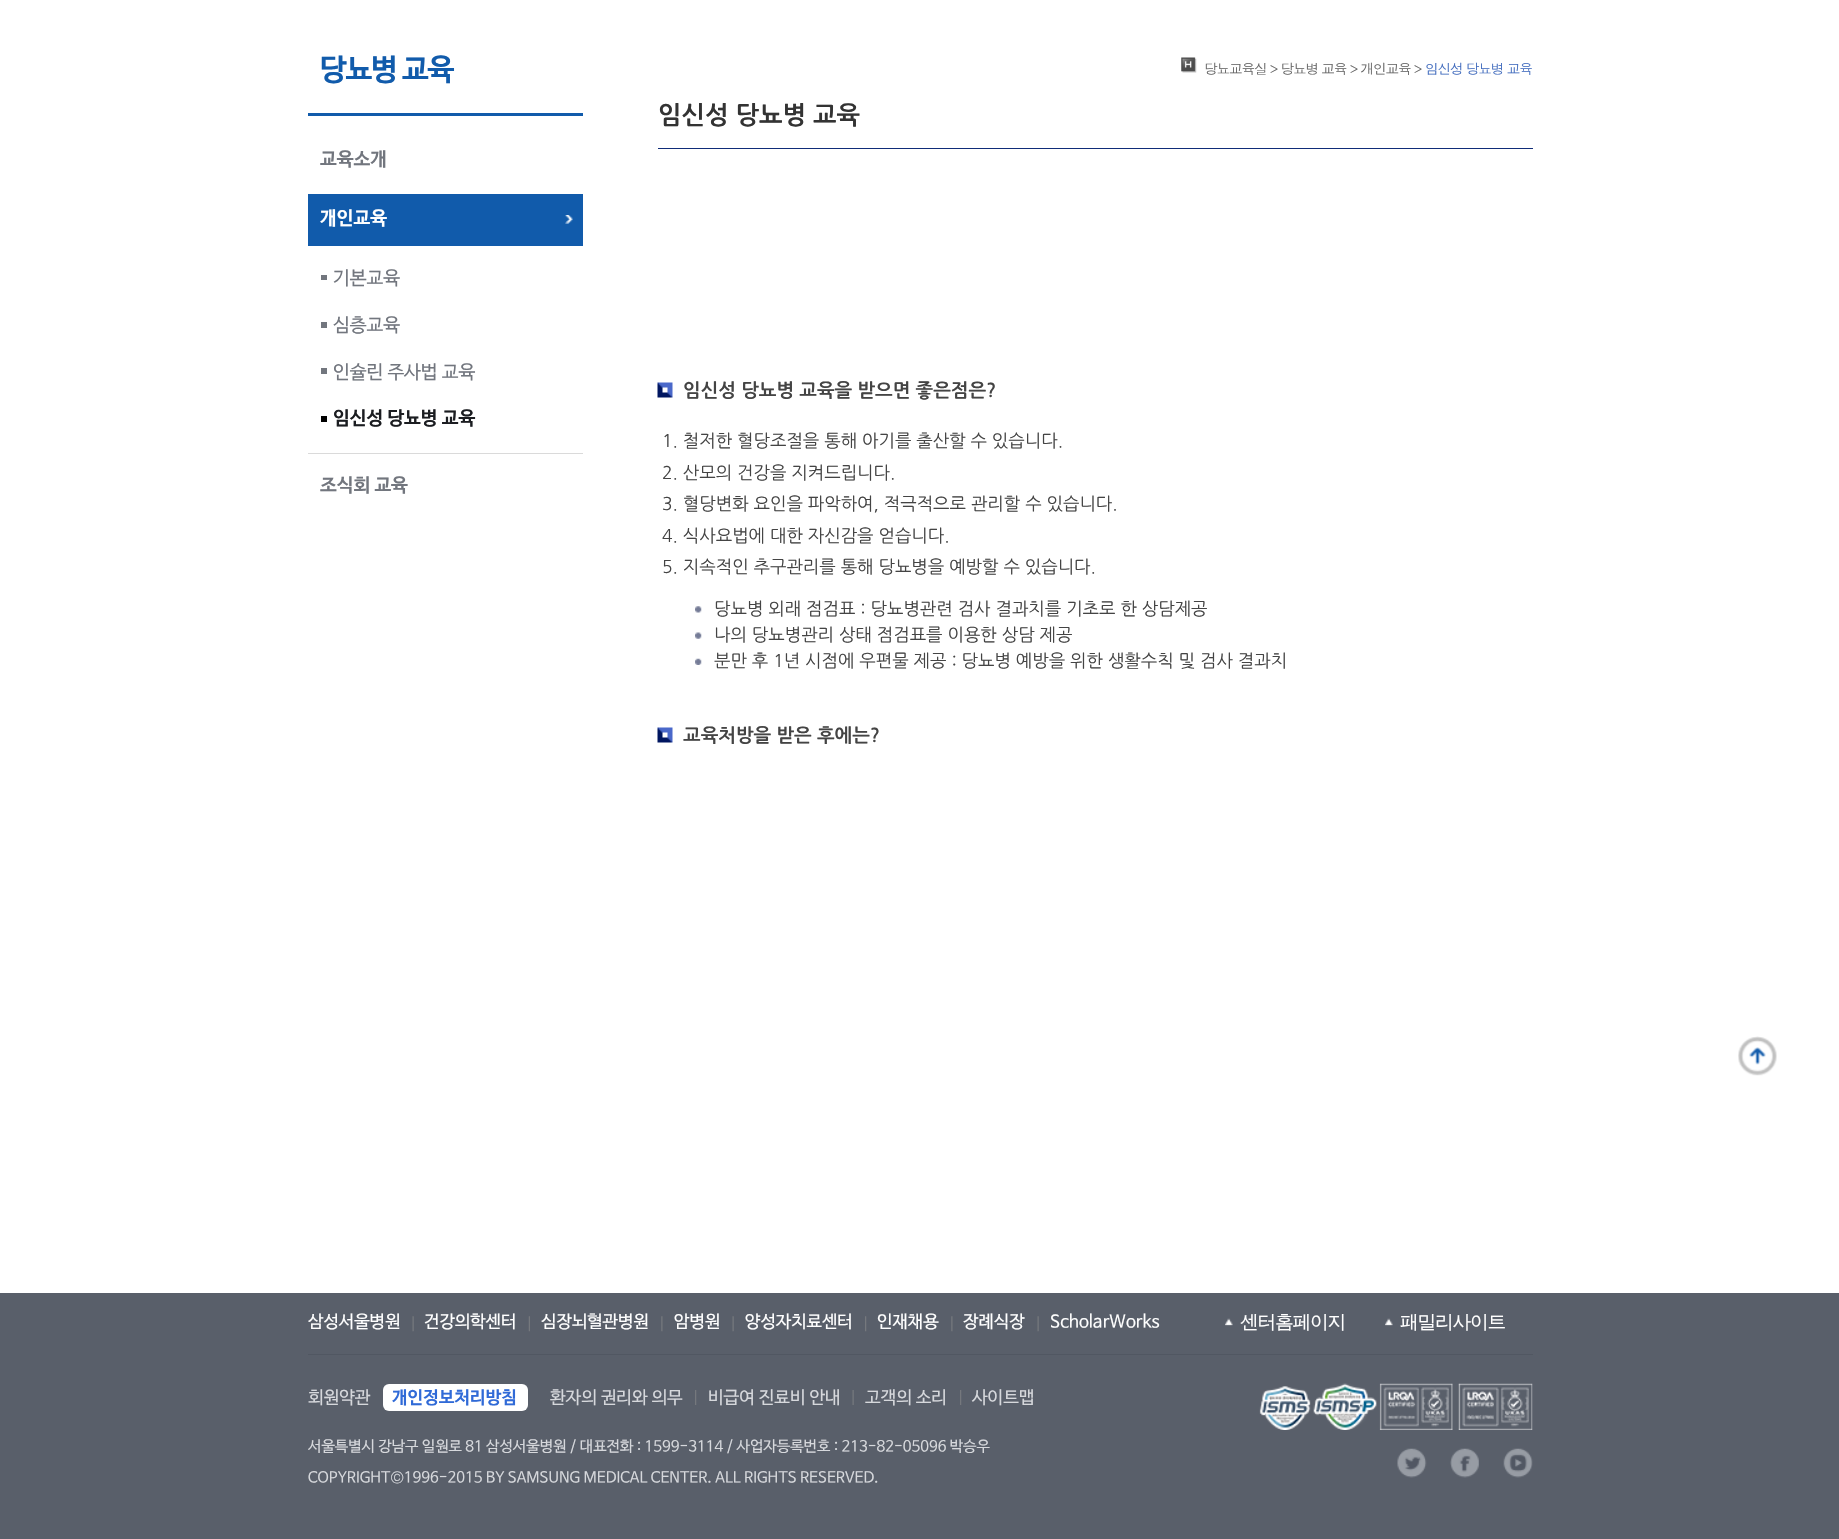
#include "include/core/SkBlurTypes.h"
#include "include/core/SkCanvas.h"
#include "include/core/SkData.h"
#include "include/core/SkFont.h"
#include "include/core/SkFontMgr.h"
#include "include/core/SkImage.h"
#include "include/core/SkMaskFilter.h"
#include "include/core/SkPaint.h"
#include "include/core/SkPathBuilder.h"
#include "include/core/SkTextBlob.h"
#include "include/effects/SkDashPathEffect.h"
#include "include/effects/SkGradientShader.h"
#include "include/utils/SkParsePath.h"

extern sk_sp<SkFontMgr> fontMgr;

void draw(SkCanvas* canvas) {
    SkPaint p;
    p.setAntiAlias(true);
    auto font = [&](const char* family, int weight, float size, bool italic = false) {
        SkFontStyle style(weight, SkFontStyle::kNormal_Width,
            italic ? SkFontStyle::kItalic_Slant : SkFontStyle::kUpright_Slant);
        SkFont result(fontMgr->matchFamilyStyle(family, style), size);
        result.setSubpixel(true);
        return result;
    };
    auto drawTracked = [&](const char* s, float x, float y, const SkFont& font, const SkPaint& ink, float letter, float word) {
        std::vector<SkGlyphID> glyphs(font.countText(s, strlen(s), SkTextEncoding::kUTF8));
        std::vector<float> xs(glyphs.size());
        font.textToGlyphs(s, strlen(s), SkTextEncoding::kUTF8, glyphs);
        font.getXPos(glyphs, xs, x);
        float extra = 0;
        for (size_t i = 0; i < glyphs.size(); i++) {
            xs[i] += extra;
            extra += letter + word * (glyphs[i] == font.unicharToGlyph(' '));
        }
        canvas->drawTextBlob(SkTextBlob::MakeFromPosHGlyphs(glyphs, xs, y, font), 0, 0, ink);
    };
    auto drawPhoto = [&](const char* path, float l, float t, float r, float b) {
        auto image = SkImages::DeferredFromEncodedData(SkData::MakeFromFileName(path));
        canvas->drawImageRect(image, SkRect::MakeLTRB(l, t, r, b), SkSamplingOptions());
    };
    canvas->clear(0xFF595F6A);
    p.setColor(0xFFFFFFFF);
    canvas->drawRect(SkRect::MakeLTRB(0, 0, 1839, 1293), p);
    p.setColor(0xFF115BAB);
    canvas->drawRect(SkRect::MakeLTRB(308, 113, 583, 116), p);
    auto font1 = font("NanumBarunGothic", 700, 30);
    drawTracked("당뇨병 교육", 320, 79, font1, p, -1.25f, 0);
    auto font2 = font("NanumBarunGothic", 700, 18.75f);
    p.setColor(0xFF72767E);
    canvas->drawString("교육소개", 320, 165, font2, p);
    p.setColor(0xFF115BAB);
    canvas->drawRect(SkRect::MakeLTRB(308, 194, 583, 246), p);
    drawPhoto("media/1.png", 565, 215, 573, 224);
    p.setColor(0xFFFFFFFF);
    canvas->drawString("개인교육", 320, 224, font2, p);
    p.setColor(0xFFDADADA);
    canvas->drawRect(SkRect::MakeLTRB(308, 453, 583, 454), p);
    p.setColor(0xFF72767E);
    canvas->drawRect(SkRect::MakeLTRB(321, 275, 327, 280), p);
    auto font3 = font("NanumBarunGothic", 400, 18.75f);
    canvas->drawString("기본교육", 333, 284, font3, p);
    canvas->drawRect(SkRect::MakeLTRB(321, 322, 327, 328), p);
    canvas->drawString("심층교육", 333, 331, font3, p);
    canvas->drawRect(SkRect::MakeLTRB(321, 368, 327, 374), p);
    canvas->drawString("인슐린 주사법 교육", 333, 378, font3, p);
    p.setColor(0xFF000000);
    canvas->drawRect(SkRect::MakeLTRB(321, 416, 327, 422), p);
    p.setColor(0xFF1B1D21);
    canvas->drawString("임신성 당뇨병 교육", 333, 424, font2, p);
    p.setColor(0xFF72767E);
    canvas->drawString("조식회 교육", 320, 491, font2, p);
    p.setColor(0xFF0F2C78);
    canvas->drawRect(SkRect::MakeLTRB(658, 148, 1533, 149), p);
    drawPhoto("media/2.png", 1181, 57, 1197, 73);
    auto font4 = font("Dotum", 400, 13.75f);
    p.setColor(0xFF656565);
    drawTracked("당뇨교육실 > 당뇨병 교육 > 개인교육 >", 1204, 74, font4, p, -1.25f, 0);
    p.setColor(0xFF426CBE);
    drawTracked("임신성 당뇨병 교육", 1425, 74, font4, p, -1.25f, 0);
    auto font5 = font("NanumGothic", 700, 25);
    p.setColor(0xFF333333);
    canvas->drawString("임신성 당뇨병 교육", 658, 124, font5, p);
    drawPhoto("media/3.png", 657, 382, 673, 398);
    auto font6 = font("NanumGothic", 700, 18.75f);
    p.setColor(0xFF444444);
    canvas->drawString("임신성 당뇨병 교육을 받으면 좋은점은?", 683, 397, font6, p);
    auto font7 = font("NanumGothic", 400, 17.5f);
    {
        const struct { const char* s; float x, y; } items[] = {
            {"1. 철저한 혈당조절을 통해 아기를 출산할 수 있습니다.", 662, 447},
            {"2. 산모의 건강을 지켜드립니다.", 662, 479},
            {"3. 혈당변화 요인을 파악하여, 적극적으로 관리할 수 있습니다.", 662, 510},
            {"4. 식사요법에 대한 자신감을 얻습니다.", 662, 542},
            {"5. 지속적인 추구관리를 통해 당뇨병을 예방할 수 있습니다.", 662, 573},
        };
        for (auto [s, x, y] : items) {
            canvas->drawString(s, x, y, font7, p);
        }
    }
    drawPhoto("media/4.png", 695, 606, 702, 613);
    canvas->drawString("당뇨병 외래 점검표 : 당뇨병관련 검사 결과치를 기초로 한 상담제공", 714, 615, font7, p);
    drawPhoto("media/5.png", 695, 632, 702, 639);
    canvas->drawString("나의 당뇨병관리 상태 점검표를 이용한 상담 제공", 714, 641, font7, p);
    drawPhoto("media/6.png", 695, 658, 702, 665);
    canvas->drawString("분만 후 1년 시점에 우편물 제공 : 당뇨병 예방을 위한 생활수칙 및 검사 결과치", 714, 667, font7, p);
    drawPhoto("media/3.png", 657, 727, 673, 743);
    canvas->drawString("교육처방을 받은 후에는?", 683, 742, font6, p);
    drawPhoto("media/7.png", 1738, 1036, 1777, 1076);
    p.setColor(0xFF515762);
    canvas->drawRect(SkRect::MakeLTRB(308, 1354, 1533, 1355), p);
    auto font8 = font("NanumBarunGothic", 400, 17.25f);
    p.setColor(0xFFFFFFFF);
    canvas->drawString("삼성서울병원", 308, 1327, font8, p);
    drawPhoto("media/8.png", 412, 1316, 414, 1332);
    canvas->drawString("건강의학센터", 424, 1327, font8, p);
    drawPhoto("media/9.png", 528, 1316, 530, 1332);
    canvas->drawString("심장뇌혈관병원", 541, 1327, font8, p);
    drawPhoto("media/10.png", 661, 1316, 663, 1332);
    canvas->drawString("암병원", 674, 1327, font8, p);
    drawPhoto("media/8.png", 732, 1316, 734, 1332);
    canvas->drawString("양성자치료센터", 745, 1327, font8, p);
    drawPhoto("media/11.png", 865, 1316, 867, 1332);
    canvas->drawString("인재채용", 877, 1327, font8, p);
    drawPhoto("media/10.png", 951, 1316, 953, 1332);
    canvas->drawString("장례식장", 963, 1327, font8, p);
    drawPhoto("media/8.png", 1037, 1316, 1039, 1332);
    canvas->drawString("ScholarWorks", 1050, 1327, font8, p);
    drawPhoto("media/12.png", 1225, 1318, 1233, 1326);
    auto font9 = font("WenQuanYi Zen Hei", 500, 18.75f);
    drawTracked("센터홈페이지", 1240, 1328, font9, p, -1.25f, 0);
    drawPhoto("media/12.png", 1385, 1318, 1393, 1326);
    drawTracked("패밀리사이트", 1400, 1328, font9, p, -1.25f, 0);
    auto font10 = font("NanumBarunGothic", 400, 17.5f);
    p.setColor(0xFFD6D8DC);
    canvas->drawString("회원약관", 308, 1403, font10, p);
    p.setColor(0xFFFFFFFF);
    canvas->drawRoundRect(SkRect::MakeLTRB(383, 1384, 528, 1411), 6, 6, p);
    auto font11 = font("NanumBarunGothic", 700, 17.5f);
    p.setColor(0xFF306AD7);
    canvas->drawString("개인정보처리방침", 392, 1403, font11, p);
    p.setColor(0xFFD6D8DC);
    canvas->drawString("환자의 권리와 의무", 550, 1403, font10, p);
    drawPhoto("media/13.png", 695, 1390, 697, 1405);
    canvas->drawString("비급여 진료비 안내", 708, 1403, font10, p);
    drawPhoto("media/14.png", 852, 1390, 854, 1405);
    canvas->drawString("고객의 소리", 865, 1403, font10, p);
    drawPhoto("media/13.png", 960, 1390, 962, 1405);
    canvas->drawString("사이트맵", 972, 1403, font10, p);
    drawPhoto("media/15.png", 1259, 1383, 1533, 1430);
    drawPhoto("media/16.png", 1397, 1448, 1427, 1478);
    drawPhoto("media/17.png", 1450, 1448, 1479, 1478);
    drawPhoto("media/18.png", 1503, 1448, 1533, 1478);
    auto font12 = font("NanumBarunGothic", 400, 15);
    canvas->drawString("서울특별시 강남구 일원로 81 삼성서울병원 / 대표전화 : 1599-3114 / 사업자등록번호 : 213-82-05096 박승우", 308, 1451, font12, p);
    canvas->drawString("COPYRIGHT©1996-2015 BY SAMSUNG MEDICAL CENTER. ALL RIGHTS RESERVED.", 308, 1482, font12, p);
}
